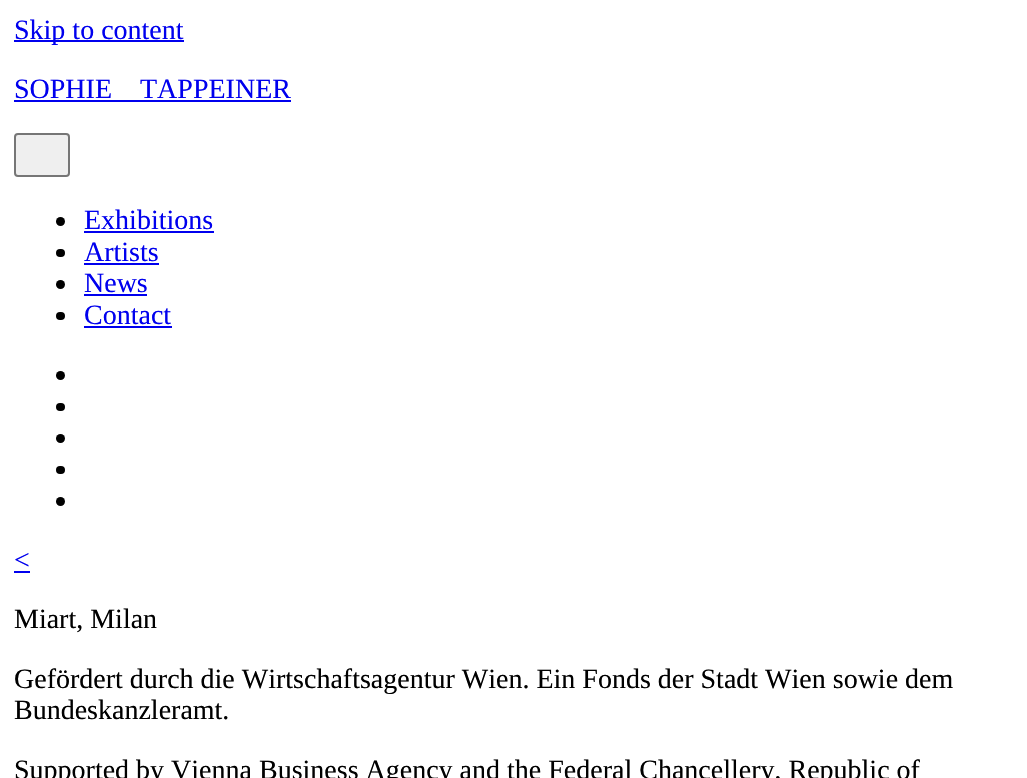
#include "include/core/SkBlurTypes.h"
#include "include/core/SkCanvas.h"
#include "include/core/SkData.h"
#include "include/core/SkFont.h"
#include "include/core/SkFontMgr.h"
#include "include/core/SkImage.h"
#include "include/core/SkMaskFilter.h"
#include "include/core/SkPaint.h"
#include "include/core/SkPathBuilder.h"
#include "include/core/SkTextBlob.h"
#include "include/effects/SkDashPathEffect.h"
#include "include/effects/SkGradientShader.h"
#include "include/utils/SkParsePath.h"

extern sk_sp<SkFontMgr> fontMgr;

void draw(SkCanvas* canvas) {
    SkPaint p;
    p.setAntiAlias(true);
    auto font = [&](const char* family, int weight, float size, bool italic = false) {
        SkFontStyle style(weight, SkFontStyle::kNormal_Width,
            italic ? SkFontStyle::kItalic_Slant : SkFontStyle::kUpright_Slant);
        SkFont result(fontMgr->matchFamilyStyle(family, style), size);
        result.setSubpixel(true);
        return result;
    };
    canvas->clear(0xFFFFFFFF);
    p.setColor(0xFF0000EE);
    canvas->drawRect(SkRect::MakeLTRB(14, 40, 184, 42), p);
    auto font1 = font("Liberation Serif", 400, 28);
    canvas->drawString("Skip to content", 14, 39, font1, p);
    canvas->drawString("SOPHIE    TAPPEINER", 14, 98, font1, p);
    canvas->drawRect(SkRect::MakeLTRB(14, 100, 291, 102), p);
    p.setColor(0xFFEFEFEF);
    canvas->drawRoundRect(SkRect::MakeLTRB(15, 134, 69, 176), 3, 3, p);
    p.setStyle(SkPaint::kStroke_Style);
    p.setStrokeWidth(2);
    p.setColor(0xFF767676);
    canvas->drawRoundRect(SkRect::MakeLTRB(15, 134, 69, 176), 3, 3, p);
    p.setStyle(SkPaint::kFill_Style);
    p.setColor(0xFF000000);
    canvas->drawCircle(60.5f, 221.5f, 4.5f, p);
    p.setColor(0xFF0000EE);
    canvas->drawString("Exhibitions", 84, 229, font1, p);
    canvas->drawRect(SkRect::MakeLTRB(84, 231, 214, 233), p);
    p.setColor(0xFF000000);
    canvas->drawRoundRect(SkRect::MakeLTRB(56, 249, 65, 257), 4, 4, p);
    p.setColor(0xFF0000EE);
    canvas->drawString("Artists", 84, 261, font1, p);
    canvas->drawRect(SkRect::MakeLTRB(84, 263, 159, 265), p);
    p.setColor(0xFF000000);
    canvas->drawCircle(60.5f, 284.5f, 4.5f, p);
    p.setColor(0xFF0000EE);
    canvas->drawString("News", 84, 292, font1, p);
    canvas->drawRect(SkRect::MakeLTRB(84, 294, 147, 296), p);
    p.setColor(0xFF000000);
    canvas->drawRoundRect(SkRect::MakeLTRB(56, 312, 65, 320), 4, 4, p);
    p.setColor(0xFF0000EE);
    canvas->drawString("Contact", 84, 324, font1, p);
    canvas->drawRect(SkRect::MakeLTRB(84, 326, 172, 328), p);
    p.setColor(0xFF000000);
    canvas->drawCircle(60.5f, 375.5f, 4.5f, p);
    canvas->drawRoundRect(SkRect::MakeLTRB(56, 403, 65, 411), 4, 4, p);
    canvas->drawCircle(60.5f, 438.5f, 4.5f, p);
    canvas->drawRoundRect(SkRect::MakeLTRB(56, 466, 65, 474), 4, 4, p);
    canvas->drawCircle(60.5f, 501.5f, 4.5f, p);
    p.setColor(0xFF0000EE);
    canvas->drawString("<", 14, 569, font1, p);
    canvas->drawRect(SkRect::MakeLTRB(14, 571, 30, 573), p);
    p.setColor(0xFF000000);
    {
        const struct { const char* s; float x, y; } items[] = {
            {"Miart, Milan", 14, 628},
            {"Gefördert durch die Wirtschaftsagentur Wien. Ein Fonds der Stadt Wien sowie dem", 14, 688},
            {"Bundeskanzleramt.", 14, 719},
            {"Supported by Vienna Business Agency and the Federal Chancellery, Republic of", 14, 779},
        };
        for (auto [s, x, y] : items) {
            canvas->drawString(s, x, y, font1, p);
        }
    }
}
